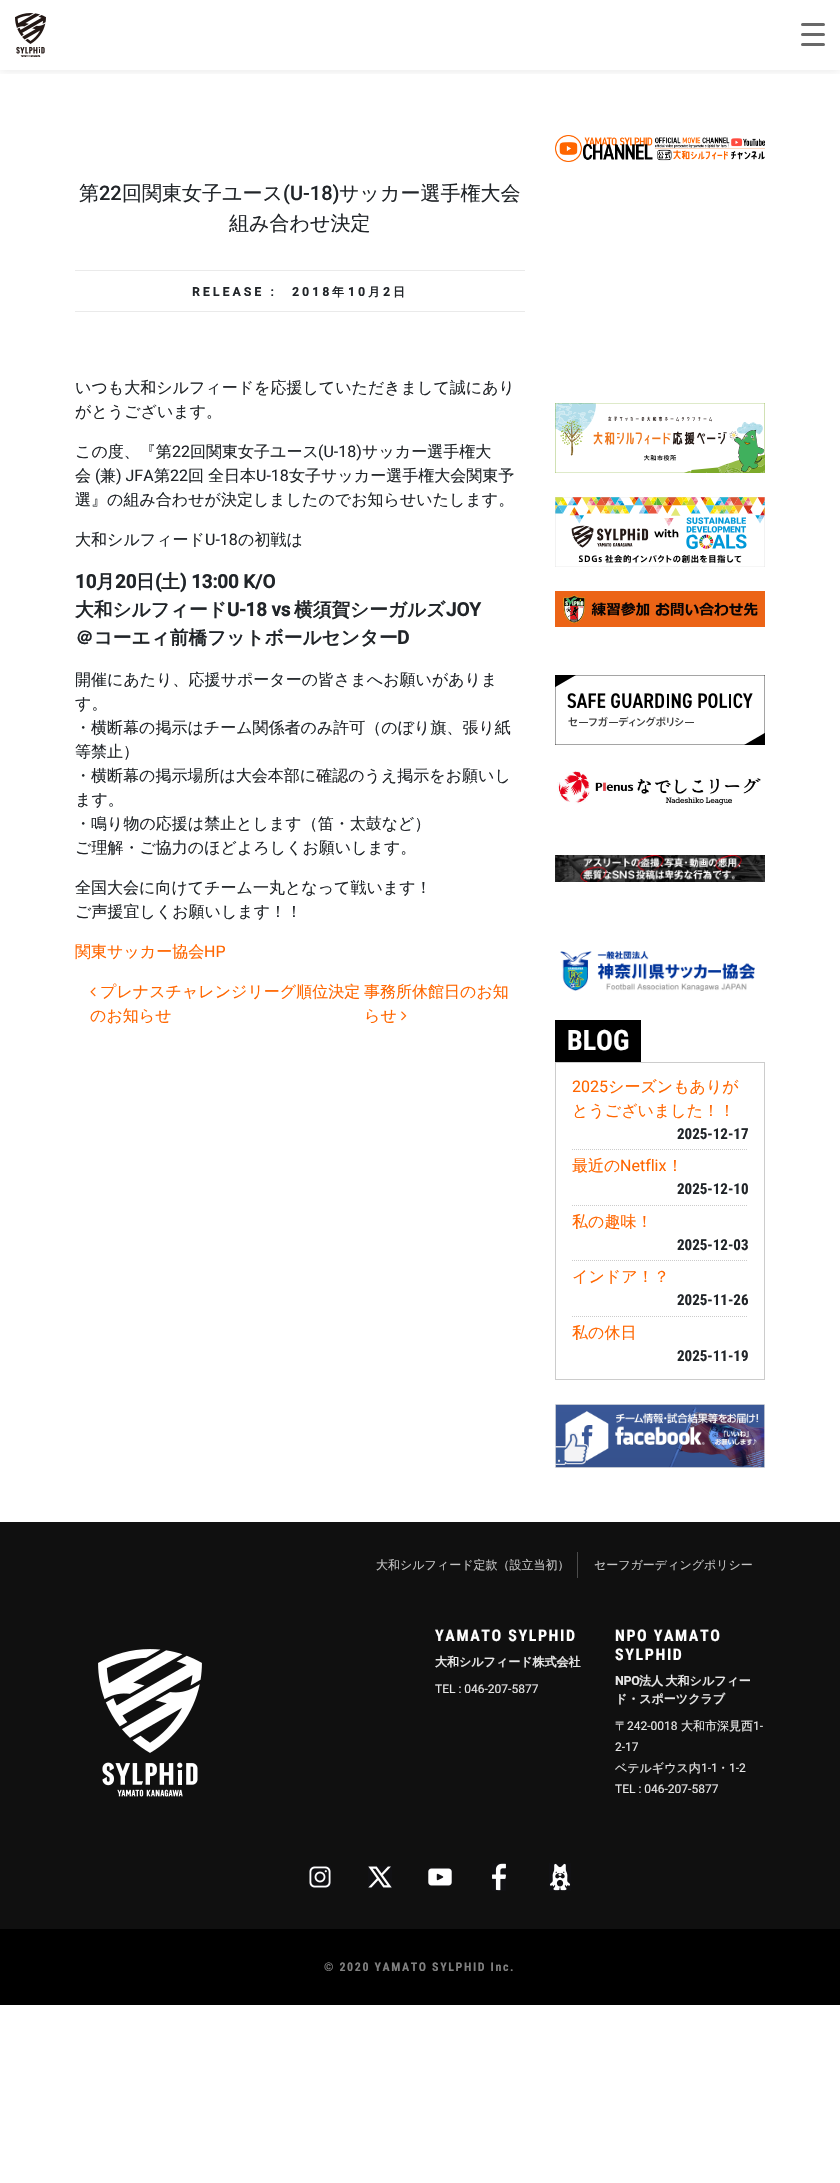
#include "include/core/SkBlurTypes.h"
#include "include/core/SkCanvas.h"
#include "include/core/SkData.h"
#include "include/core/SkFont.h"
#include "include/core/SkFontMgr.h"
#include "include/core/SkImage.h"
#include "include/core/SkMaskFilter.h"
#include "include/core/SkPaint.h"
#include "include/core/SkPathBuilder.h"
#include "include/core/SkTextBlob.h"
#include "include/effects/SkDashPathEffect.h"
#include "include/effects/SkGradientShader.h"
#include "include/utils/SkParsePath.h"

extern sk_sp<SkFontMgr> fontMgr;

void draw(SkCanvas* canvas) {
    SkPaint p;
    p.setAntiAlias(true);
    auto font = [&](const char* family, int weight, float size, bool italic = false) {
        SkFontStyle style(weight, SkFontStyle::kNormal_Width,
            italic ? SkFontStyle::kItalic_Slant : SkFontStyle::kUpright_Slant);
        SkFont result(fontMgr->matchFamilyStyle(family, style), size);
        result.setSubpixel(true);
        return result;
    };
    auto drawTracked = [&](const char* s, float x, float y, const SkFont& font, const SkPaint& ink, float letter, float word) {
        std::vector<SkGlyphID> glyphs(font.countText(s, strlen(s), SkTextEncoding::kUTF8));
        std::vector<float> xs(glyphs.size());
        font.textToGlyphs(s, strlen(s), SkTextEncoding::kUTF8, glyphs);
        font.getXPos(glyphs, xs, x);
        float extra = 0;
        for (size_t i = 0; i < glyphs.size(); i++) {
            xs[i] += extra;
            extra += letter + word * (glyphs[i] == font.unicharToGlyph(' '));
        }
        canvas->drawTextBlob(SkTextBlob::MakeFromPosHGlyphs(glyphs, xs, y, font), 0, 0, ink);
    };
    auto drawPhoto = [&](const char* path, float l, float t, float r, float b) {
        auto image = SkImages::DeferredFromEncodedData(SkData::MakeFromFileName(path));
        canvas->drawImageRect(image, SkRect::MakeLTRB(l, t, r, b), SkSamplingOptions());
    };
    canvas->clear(0xFFFFFFFF);
    canvas->save();
    canvas->clipRect(SkRect::MakeLTRB(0, 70, 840, 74));
    p.setColor(0x1A000000);
    p.setMaskFilter(SkMaskFilter::MakeBlur(kNormal_SkBlurStyle, 5));
    canvas->drawRect(SkRect::MakeLTRB(0, 0, 840, 70), p);
    p.setMaskFilter(nullptr);
    canvas->restore();
    drawPhoto("media/1.png", 15, 13, 46, 57);
    p.setColor(0xFF686868);
    canvas->drawRoundRect(SkRect::MakeLTRB(801, 33, 825, 36), 1.5f, 1.5f, p);
    canvas->drawRoundRect(SkRect::MakeLTRB(801, 23, 825, 26), 1.5f, 1.5f, p);
    canvas->drawRoundRect(SkRect::MakeLTRB(801, 43, 825, 46), 1.5f, 1.5f, p);
    auto font1 = font("WenQuanYi Zen Hei", 500, 20);
    p.setColor(0xFF212529);
    canvas->drawString("第", 79, 200, font1, p);
    auto font2 = font("Roboto", 500, 20);
    canvas->drawString("22", 99, 200, font2, p);
    canvas->drawString("回関東女子ユース", 122, 200, font1, p);
    canvas->drawString("(U-18)", 283, 200, font2, p);
    canvas->drawString("サッカー選手権大会", 339, 200, font1, p);
    canvas->drawString("組み合わせ決定", 229, 230, font1, p);
    p.setColor(0xFFEAEAEA);
    canvas->drawRect(SkRect::MakeLTRB(75, 270, 525, 271), p);
    canvas->drawRect(SkRect::MakeLTRB(75, 311, 525, 312), p);
    auto font3 = font("Roboto", 700, 12);
    p.setColor(0xFF212529);
    drawTracked("RELEASE :", 192, 296, font3, p, 3.25f, 0);
    drawTracked("2018", 292, 296, font3, p, 3.25f, 0);
    auto font4 = font("WenQuanYi Zen Hei", 700, 12);
    drawTracked("年", 332, 296, font4, p, 3.25f, 0);
    drawTracked("10", 348, 296, font3, p, 3.25f, 0);
    drawTracked("月", 368, 296, font4, p, 3.25f, 0);
    drawTracked("2", 383, 296, font3, p, 3.25f, 0);
    drawTracked("日", 393, 296, font4, p, 3.25f, 0);
    auto font5 = font("WenQuanYi Zen Hei", 500, 16);
    {
        const struct { const char* s; float x, y; } items[] = {
            {"いつも大和シルフィードを応援していただきまして誠にあり", 75, 393},
            {"がとうございます。", 75, 417},
            {"この度、『第", 75, 457},
        };
        for (auto [s, x, y] : items) {
            canvas->drawString(s, x, y, font5, p);
        }
    }
    auto font6 = font("Roboto", 400, 16);
    canvas->drawString("22", 172, 457, font6, p);
    canvas->drawString("回関東女子ユース", 190, 457, font5, p);
    canvas->drawString("(U-18)", 318, 457, font6, p);
    canvas->drawString("サッカー選手権大", 362, 457, font5, p);
    canvas->drawString("会", 75, 481, font5, p);
    canvas->drawString("(", 95, 481, font6, p);
    canvas->drawString("兼", 100, 481, font5, p);
    canvas->drawString(") JFA", 116, 481, font6, p);
    canvas->drawString("第", 154, 481, font5, p);
    canvas->drawString("22", 170, 481, font6, p);
    canvas->drawString("回", 188, 481, font5, p);
    canvas->drawString("全日本", 208, 481, font5, p);
    canvas->drawString("U-18", 256, 481, font6, p);
    {
        const struct { const char* s; float x, y; } items[] = {
            {"女子サッカー選手権大会関東予", 289, 481},
            {"選』の組み合わせが決定しましたのでお知らせいたします。", 75, 505},
            {"大和シルフィード", 75, 545},
        };
        for (auto [s, x, y] : items) {
            canvas->drawString(s, x, y, font5, p);
        }
    }
    canvas->drawString("U-18", 205, 545, font6, p);
    canvas->drawString("の初戦は", 238, 545, font5, p);
    auto font7 = font("Roboto", 700, 18.7f);
    canvas->drawString("10", 75, 588, font7, p);
    auto font8 = font("WenQuanYi Zen Hei", 700, 18.7f);
    canvas->drawString("月", 96, 588, font8, p);
    canvas->drawString("20", 115, 588, font7, p);
    canvas->drawString("日", 136, 588, font8, p);
    canvas->drawString("(", 155, 588, font7, p);
    canvas->drawString("土", 161, 588, font8, p);
    canvas->drawString(") 13:00 K/O", 180, 588, font7, p);
    canvas->drawString("大和シルフィード", 75, 616, font8, p);
    canvas->drawString("U-18 vs", 227, 616, font7, p);
    canvas->drawString("横須賀シーガルズ", 294, 616, font8, p);
    canvas->drawString("JOY", 446, 616, font7, p);
    canvas->drawString("＠コーエィ前橋フットボールセンター", 75, 644, font8, p);
    canvas->drawString("D", 397, 644, font7, p);
    {
        const struct { const char* s; float x, y; } items[] = {
            {"開催にあたり、応援サポーターの皆さまへお願いがありま", 75, 685},
            {"す。", 75, 709},
            {"・横断幕の掲示はチーム関係者のみ許可（のぼり旗、張り紙", 75, 733},
            {"等禁止）", 75, 757},
            {"・横断幕の掲示場所は大会本部に確認のうえ掲示をお願いし", 75, 781},
            {"ます。", 75, 805},
            {"・鳴り物の応援は禁止とします（笛・太鼓など）", 75, 829},
            {"ご理解・ご協力のほどよろしくお願いします。", 75, 853},
            {"全国大会に向けてチーム一丸となって戦います！", 75, 893},
            {"ご声援宜しくお願いします！！", 75, 917},
        };
        for (auto [s, x, y] : items) {
            canvas->drawString(s, x, y, font5, p);
        }
    }
    p.setColor(0xFFFF6600);
    canvas->drawString("関東サッカー協会", 75, 957, font5, p);
    canvas->drawString("HP", 204, 957, font6, p);
    drawPhoto("media/2.png", 90, 987, 96, 997);
    {
        const struct { const char* s; float x, y; } items[] = {
            {"プレナスチャレンジリーグ順位決定", 100, 997},
            {"のお知らせ", 90, 1021},
            {"事務所休館日のお知", 364, 997},
            {"らせ", 364, 1021},
        };
        for (auto [s, x, y] : items) {
            canvas->drawString(s, x, y, font5, p);
        }
    }
    drawPhoto("media/3.png", 401, 1011, 407, 1021);
    drawPhoto("media/4.png", 555, 135, 765, 162);
    drawPhoto("media/5.png", 555, 403, 765, 473);
    drawPhoto("media/6.png", 555, 497, 765, 567);
    drawPhoto("media/7.png", 555, 591, 765, 627);
    drawPhoto("media/8.png", 555, 675, 765, 745);
    drawPhoto("media/9.png", 557, 771, 761, 806);
    drawPhoto("media/10.png", 555, 855, 765, 882);
    drawPhoto("media/11.png", 560, 951, 755, 991);
    p.setColor(0xFF000000);
    canvas->drawRect(SkRect::MakeLTRB(555, 1020, 641, 1062), p);
    auto font9 = font("Roboto Condensed", 700, 28);
    p.setColor(0xFFFFFFFF);
    canvas->drawString("BLOG", 567, 1050, font9, p);
    p.setStyle(SkPaint::kStroke_Style);
    p.setStrokeWidth(1);
    p.setColor(0xFFCCCCCC);
    canvas->drawRect(SkRect::MakeLTRB(555.5f, 1062.5f, 764.5f, 1379.5f), p);
    p.setPathEffect(SkDashPathEffect::Make({{1, 1}}, 0));
    canvas->drawPath(SkPathBuilder().moveTo(572, 1149.5f).lineTo(748, 1149.5f).detach(), p);
    p.setPathEffect(nullptr);
    p.setStyle(SkPaint::kFill_Style);
    p.setColor(0xFFFF6600);
    canvas->drawString("2025", 572, 1092, font6, p);
    canvas->drawString("シーズンもありが", 608, 1092, font5, p);
    canvas->drawString("とうございました！！", 572, 1116, font5, p);
    auto font10 = font("Roboto Condensed", 700, 15);
    p.setColor(0xFF212529);
    canvas->drawString("2025-12-17", 677, 1139, font10, p);
    p.setStyle(SkPaint::kStroke_Style);
    p.setColor(0xFFCCCCCC);
    p.setPathEffect(SkDashPathEffect::Make({{1, 1}}, 0));
    canvas->drawPath(SkPathBuilder().moveTo(572, 1205.5f).lineTo(748, 1205.5f).detach(), p);
    p.setPathEffect(nullptr);
    p.setStyle(SkPaint::kFill_Style);
    p.setColor(0xFFFF6600);
    canvas->drawString("最近の", 572, 1171, font5, p);
    canvas->drawString("Netflix", 620, 1171, font6, p);
    canvas->drawString("！", 667, 1171, font5, p);
    p.setColor(0xFF212529);
    canvas->drawString("2025-12-10", 677, 1194, font10, p);
    p.setStyle(SkPaint::kStroke_Style);
    p.setColor(0xFFCCCCCC);
    p.setPathEffect(SkDashPathEffect::Make({{1, 1}}, 0));
    canvas->drawPath(SkPathBuilder().moveTo(572, 1260.5f).lineTo(748, 1260.5f).detach(), p);
    p.setPathEffect(nullptr);
    p.setStyle(SkPaint::kFill_Style);
    p.setColor(0xFFFF6600);
    canvas->drawString("私の趣味！", 572, 1227, font5, p);
    p.setColor(0xFF212529);
    canvas->drawString("2025-12-03", 677, 1250, font10, p);
    p.setStyle(SkPaint::kStroke_Style);
    p.setColor(0xFFCCCCCC);
    p.setPathEffect(SkDashPathEffect::Make({{1, 1}}, 0));
    canvas->drawPath(SkPathBuilder().moveTo(572, 1316.5f).lineTo(748, 1316.5f).detach(), p);
    p.setPathEffect(nullptr);
    p.setStyle(SkPaint::kFill_Style);
    p.setColor(0xFFFF6600);
    canvas->drawString("インドア！？", 572, 1282, font5, p);
    p.setColor(0xFF212529);
    canvas->drawString("2025-11-26", 677, 1305, font10, p);
    p.setColor(0xFFFF6600);
    canvas->drawString("私の休日", 572, 1338, font5, p);
    p.setColor(0xFF212529);
    canvas->drawString("2025-11-19", 677, 1361, font10, p);
    drawPhoto("media/12.png", 555, 1404, 765, 1468);
    p.setColor(0xFF101010);
    canvas->drawRect(SkRect::MakeLTRB(0, 1522, 840, 1929), p);
    p.setColor(0xFF4C4C4C);
    canvas->drawRect(SkRect::MakeLTRB(577, 1552, 578, 1578), p);
    auto font11 = font("WenQuanYi Zen Hei", 500, 12);
    p.setColor(0xFFC3C3C3);
    canvas->drawString("大和シルフィード定款（設立当初）", 376, 1569, font11, p);
    canvas->drawString("セーフガーディングポリシー", 594, 1569, font11, p);
    drawPhoto("media/13.png", 98, 1649, 202, 1797);
    auto font12 = font("Roboto Condensed", 700, 16);
    p.setColor(0xFFFFFFFF);
    drawTracked("YAMATO SYLPHID", 435, 1641, font12, p, 1.6f, 0);
    p.setColor(0xFFE7E7E7);
    canvas->drawString("大和シルフィード株式会社", 435, 1666, font4, p);
    auto font13 = font("Roboto", 400, 12);
    canvas->drawString("TEL : 046-207-5877", 435, 1693, font13, p);
    p.setColor(0xFFFFFFFF);
    drawTracked("NPO YAMATO", 615, 1641, font12, p, 1.6f, 0);
    drawTracked("SYLPHID", 615, 1660, font12, p, 1.6f, 0);
    p.setColor(0xFFE7E7E7);
    canvas->drawString("NPO", 615, 1685, font3, p);
    drawTracked("法人 大和シルフィー", 639, 1685, font4, p, 0, -1);
    canvas->drawString("ド・スポーツクラブ", 615, 1703, font4, p);
    canvas->drawString("〒", 615, 1730, font11, p);
    canvas->drawString("242-0018", 627, 1730, font13, p);
    canvas->drawString("大和市深見西", 681, 1730, font11, p);
    canvas->drawString("1-", 753, 1730, font13, p);
    canvas->drawString("2-17", 615, 1751, font13, p);
    canvas->drawString("ベテルギウス内", 615, 1772, font11, p);
    canvas->drawString("1-1", 701, 1772, font13, p);
    canvas->drawString("・", 717, 1772, font11, p);
    canvas->drawString("1-2", 729, 1772, font13, p);
    canvas->drawString("TEL : 046-207-5877", 615, 1793, font13, p);
    drawPhoto("media/14.png", 309, 1866, 331, 1888);
    drawPhoto("media/15.png", 368, 1866, 392, 1888);
    drawPhoto("media/16.png", 428, 1868, 452, 1886);
    drawPhoto("media/17.png", 492, 1863, 506, 1891);
    drawPhoto("media/18.png", 549, 1863, 571, 1891);
    p.setColor(0xFF000000);
    canvas->drawRect(SkRect::MakeLTRB(0, 1929, 840, 2005), p);
    auto font14 = font("Roboto Condensed", 700, 12);
    p.setColor(0xFF808080);
    drawTracked("© 2020 YAMATO SYLPHID Inc.", 324, 1971, font14, p, 1.6f, 0);
}
